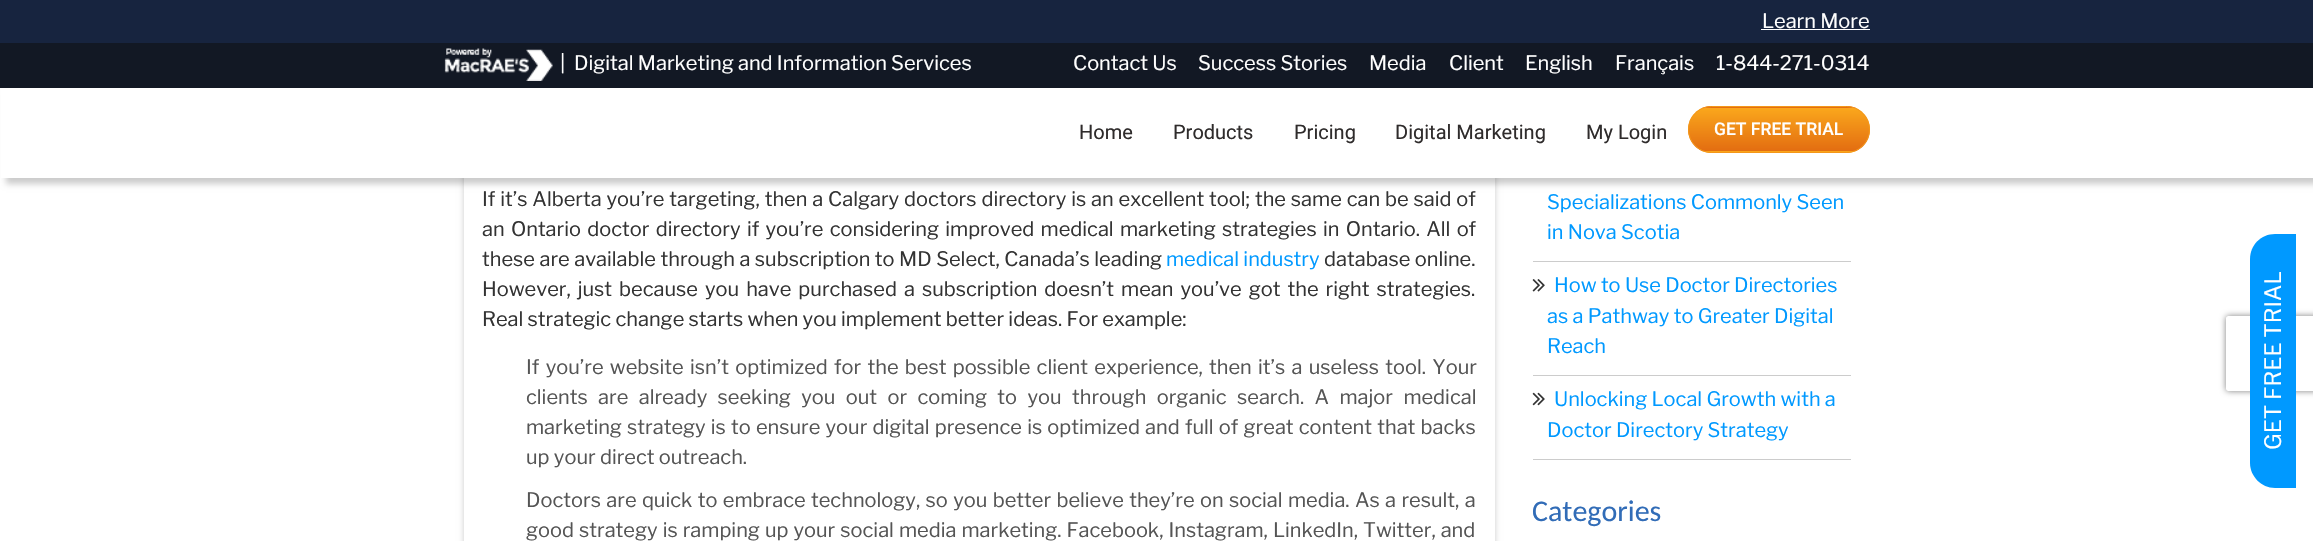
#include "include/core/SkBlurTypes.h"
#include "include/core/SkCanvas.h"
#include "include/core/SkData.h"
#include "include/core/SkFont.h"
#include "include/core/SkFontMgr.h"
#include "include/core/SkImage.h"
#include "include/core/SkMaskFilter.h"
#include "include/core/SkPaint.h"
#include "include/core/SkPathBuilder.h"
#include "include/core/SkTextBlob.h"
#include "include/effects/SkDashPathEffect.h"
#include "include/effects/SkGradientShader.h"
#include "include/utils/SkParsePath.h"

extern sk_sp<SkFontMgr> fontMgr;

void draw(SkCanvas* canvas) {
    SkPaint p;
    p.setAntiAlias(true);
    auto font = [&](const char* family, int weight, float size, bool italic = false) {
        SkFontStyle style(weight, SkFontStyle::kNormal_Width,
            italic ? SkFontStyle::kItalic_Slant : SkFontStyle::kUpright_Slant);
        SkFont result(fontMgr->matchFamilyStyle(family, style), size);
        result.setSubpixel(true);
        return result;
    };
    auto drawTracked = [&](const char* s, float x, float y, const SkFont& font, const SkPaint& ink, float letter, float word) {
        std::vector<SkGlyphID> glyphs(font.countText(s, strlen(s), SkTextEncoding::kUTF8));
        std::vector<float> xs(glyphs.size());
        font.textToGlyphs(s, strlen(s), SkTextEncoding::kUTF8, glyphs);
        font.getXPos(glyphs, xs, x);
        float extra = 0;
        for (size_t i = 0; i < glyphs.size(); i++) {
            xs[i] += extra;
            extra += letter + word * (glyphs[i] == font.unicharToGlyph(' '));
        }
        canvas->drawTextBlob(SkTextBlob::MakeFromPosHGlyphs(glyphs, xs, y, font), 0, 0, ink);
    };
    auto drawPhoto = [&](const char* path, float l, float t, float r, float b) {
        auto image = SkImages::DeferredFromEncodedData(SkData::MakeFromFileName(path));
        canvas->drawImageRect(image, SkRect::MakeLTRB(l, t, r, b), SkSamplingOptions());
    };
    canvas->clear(0xFFFFFFFF);
    canvas->save();
    canvas->clipPath(SkPathBuilder(SkPathFillType::kEvenOdd).moveTo(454, 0).lineTo(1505, 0).lineTo(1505, 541).lineTo(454, 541).close().moveTo(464, -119).lineTo(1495, -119).lineTo(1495, 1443).lineTo(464, 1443).close().detach(), true);
    p.setColor(0x33000000);
    p.setMaskFilter(SkMaskFilter::MakeBlur(kNormal_SkBlurStyle, 3));
    canvas->drawRect(SkRect::MakeLTRB(464, -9, 1495, 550), p);
    p.setMaskFilter(nullptr);
    canvas->restore();
    p.setColor(0xFF17243F);
    canvas->drawRect(SkRect::MakeLTRB(0, 0, 2313, 43), p);
    auto font1 = font("Libre Franklin", 400, 20);
    p.setColor(0xFFFFFFFF);
    canvas->drawString("Learn More", 1762, 28, font1, p);
    canvas->drawRect(SkRect::MakeLTRB(1761, 29, 1870, 30), p);
    p.setColor(0xFF121824);
    canvas->drawRect(SkRect::MakeLTRB(0, 43, 2313, 88), p);
    drawPhoto("media/1.png", 444, 48, 553, 81);
    p.setColor(0xFFFFFFFF);
    {
        const struct { const char* s; float x, y; } items[] = {
            {"|", 560, 70},
            {"Digital Marketing and Information Services", 574, 70},
            {"Contact Us", 1073, 70},
            {"Success Stories", 1198, 70},
            {"Media", 1369, 70},
            {"Client", 1449, 70},
            {"English", 1525, 70},
            {"Français", 1615, 70},
            {"1-844-271-0314", 1716, 70},
        };
        for (auto [s, x, y] : items) {
            canvas->drawString(s, x, y, font1, p);
        }
    }
    p.setColor(0x33000000);
    p.setMaskFilter(SkMaskFilter::MakeBlur(kNormal_SkBlurStyle, 3));
    canvas->drawRect(SkRect::MakeLTRB(6, 94, 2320, 184), p);
    p.setMaskFilter(nullptr);
    p.setColor(0xFFFFFFFF);
    canvas->drawRect(SkRect::MakeLTRB(1, 88, 2313, 178), p);
    auto font2 = font("Roboto", 400, 20);
    p.setColor(0xFF2F2C2C);
    {
        const struct { const char* s; float x, y; } items[] = {
            {"Home", 1079, 139},
            {"Products", 1173, 139},
            {"Pricing", 1294, 139},
            {"Digital Marketing", 1395, 139},
            {"My Login", 1586, 139},
        };
        for (auto [s, x, y] : items) {
            canvas->drawString(s, x, y, font2, p);
        }
    }
    canvas->save();
    canvas->clipPath(SkPathBuilder().moveTo(1711.5f, 106).lineTo(1846.5f, 106).cubicTo(1859.5f, 106, 1870, 116.5f, 1870, 129.5f).cubicTo(1870, 142.5f, 1859.5f, 153, 1846.5f, 153).lineTo(1711.5f, 153).cubicTo(1698.5f, 153, 1688, 142.5f, 1688, 129.5f).cubicTo(1688, 116.5f, 1698.5f, 106, 1711.5f, 106).close().detach(), true);
    {
        const SkColor colors[] = {0xFFFAA71C, 0xFFE36D11};
        const float stops[] = {0, 1};
        const SkPoint ends[] = {{1779, 64}, {1779, 108}};
        p.setShader(SkGradientShader::MakeLinear(ends, colors, stops, 2, SkTileMode::kClamp));
        p.setAlpha(255);
    }
    canvas->drawRect(SkRect::MakeLTRB(1702, 106, 1856, 108), p);
    {
        const SkColor colors[] = {0xFFFAA71C, 0xFFE36D11};
        const float stops[] = {0, 1};
        const SkPoint ends[] = {{1779, 108}, {1779, 151}};
        p.setShader(SkGradientShader::MakeLinear(ends, colors, stops, 2, SkTileMode::kClamp));
        p.setAlpha(255);
    }
    canvas->drawRect(SkRect::MakeLTRB(1688, 108, 1870, 151), p);
    {
        const SkColor colors[] = {0xFFFAA71C, 0xFFE36D11};
        const float stops[] = {0, 1};
        const SkPoint ends[] = {{1779, 151}, {1779, 195}};
        p.setShader(SkGradientShader::MakeLinear(ends, colors, stops, 2, SkTileMode::kClamp));
        p.setAlpha(255);
    }
    canvas->drawRect(SkRect::MakeLTRB(1702, 151, 1856, 153), p);
    canvas->restore();
    p.setStyle(SkPaint::kStroke_Style);
    p.setStrokeWidth(1);
    p.setShader(nullptr);
    p.setColor(0xFFF49719);
    canvas->drawRoundRect(SkRect::MakeLTRB(1688.5f, 106.5f, 1869.5f, 152.5f), 23, 23, p);
    auto font3 = font("Roboto", 500, 17.5f);
    p.setStyle(SkPaint::kFill_Style);
    p.setColor(0xFFFFFFFF);
    canvas->drawString("GET FREE TRIAL", 1714, 135, font3, p);
    p.setColor(0xFF333333);
    drawTracked("If it’s Alberta you’re targeting, then a Calgary doctors directory is an excellent tool; the same can be said of", 482, 206, font1, p, 0, 0.6f);
    drawTracked("an Ontario doctor directory if you’re considering improved medical marketing strategies in Ontario. All of", 482, 236, font1, p, 0, 2);
    drawTracked("these are available through a subscription to MD Select, Canada’s leading", 482, 266, font1, p, 0, 0.25f);
    p.setColor(0xFF0099FF);
    canvas->drawString("medical industry", 1166, 266, font1, p);
    p.setColor(0xFF333333);
    canvas->drawString("database online.", 1324, 266, font1, p);
    drawTracked("However, just because you have purchased a subscription doesn’t mean you’ve got the right strategies.", 482, 296, font1, p, 0, 2.75f);
    canvas->drawString("Real strategic change starts when you implement better ideas. For example:", 482, 326, font1, p);
    p.setColor(0xFF555555);
    drawTracked("If you’re website isn’t optimized for the best possible client experience, then it’s a useless tool. Your", 526, 374, font1, p, 0, 2);
    drawTracked("clients are already seeking you out or coming to you through organic search. A major medical", 526, 404, font1, p, 0, 6.1f);
    drawTracked("marketing strategy is to ensure your digital presence is optimized and full of great content that backs", 526, 434, font1, p, 0, 0.9f);
    canvas->drawString("up your direct outreach.", 526, 464, font1, p);
    drawTracked("Doctors are quick to embrace technology, so you better believe they’re on social media. As a result, a", 526, 507, font1, p, 0, 1.1f);
    drawTracked("good strategy is ramping up your social media marketing. Facebook, Instagram, LinkedIn, Twitter, and", 526, 537, font1, p, 0, 0.75f);
    p.setColor(0xFFCCCCCC);
    canvas->drawRect(SkRect::MakeLTRB(1533, 261, 1851, 262), p);
    p.setColor(0xFF0099FF);
    canvas->drawString("Specializations Commonly Seen", 1547, 209, font1, p);
    canvas->drawString("in Nova Scotia", 1547, 239, font1, p);
    p.setColor(0xFFCCCCCC);
    canvas->drawRect(SkRect::MakeLTRB(1533, 375, 1851, 376), p);
    drawPhoto("media/2.png", 1532, 279, 1545, 292);
    p.setColor(0xFF0099FF);
    {
        const struct { const char* s; float x, y; } items[] = {
            {"How to Use Doctor Directories", 1554, 292},
            {"as a Pathway to Greater Digital", 1547, 323},
            {"Reach", 1547, 353},
        };
        for (auto [s, x, y] : items) {
            canvas->drawString(s, x, y, font1, p);
        }
    }
    p.setColor(0xFFCCCCCC);
    canvas->drawRect(SkRect::MakeLTRB(1533, 459, 1851, 460), p);
    drawPhoto("media/3.png", 1532, 392, 1545, 406);
    p.setColor(0xFF0099FF);
    canvas->drawString("Unlocking Local Growth with a", 1554, 406, font1, p);
    canvas->drawString("Doctor Directory Strategy", 1547, 437, font1, p);
    auto font4 = font("Carlito", 400, 30);
    p.setColor(0xFF316CB7);
    canvas->drawString("Categories", 1532, 521, font4, p);
    canvas->save();
    canvas->clipPath(SkPathBuilder(SkPathFillType::kEvenOdd).moveTo(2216, 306).lineTo(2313, 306).lineTo(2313, 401).lineTo(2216, 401).close().moveTo(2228.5f, 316).lineTo(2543.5f, 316).cubicTo(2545, 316, 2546, 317, 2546, 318.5f).lineTo(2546, 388.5f).cubicTo(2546, 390, 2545, 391, 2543.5f, 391).lineTo(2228.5f, 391).cubicTo(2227, 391, 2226, 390, 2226, 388.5f).lineTo(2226, 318.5f).cubicTo(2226, 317, 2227, 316, 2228.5f, 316).close().detach(), true);
    p.setColor(0xFF808080);
    p.setMaskFilter(SkMaskFilter::MakeBlur(kNormal_SkBlurStyle, 3));
    canvas->drawRoundRect(SkRect::MakeLTRB(2226, 316, 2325, 391), 2.5f, 2.5f, p);
    p.setMaskFilter(nullptr);
    canvas->restore();
    p.setColor(0xFF0099FF);
    canvas->drawPath(SkPathBuilder().moveTo(2250, 463).lineTo(2250, 259).cubicTo(2250, 245, 2261, 234, 2275, 234).lineTo(2296, 234).lineTo(2296, 488).lineTo(2275, 488).cubicTo(2261, 488, 2250, 476, 2250, 463).close().detach(), p);
    auto font5 = font("Libre Franklin", 400, 22.5f);
    p.setColor(0xFFFFFFFF);
    canvas->save();
    canvas->rotate(-90, 2281, 450);
    canvas->drawString("GET FREE TRIAL", 2281, 450, font5, p);
    canvas->restore();
}
